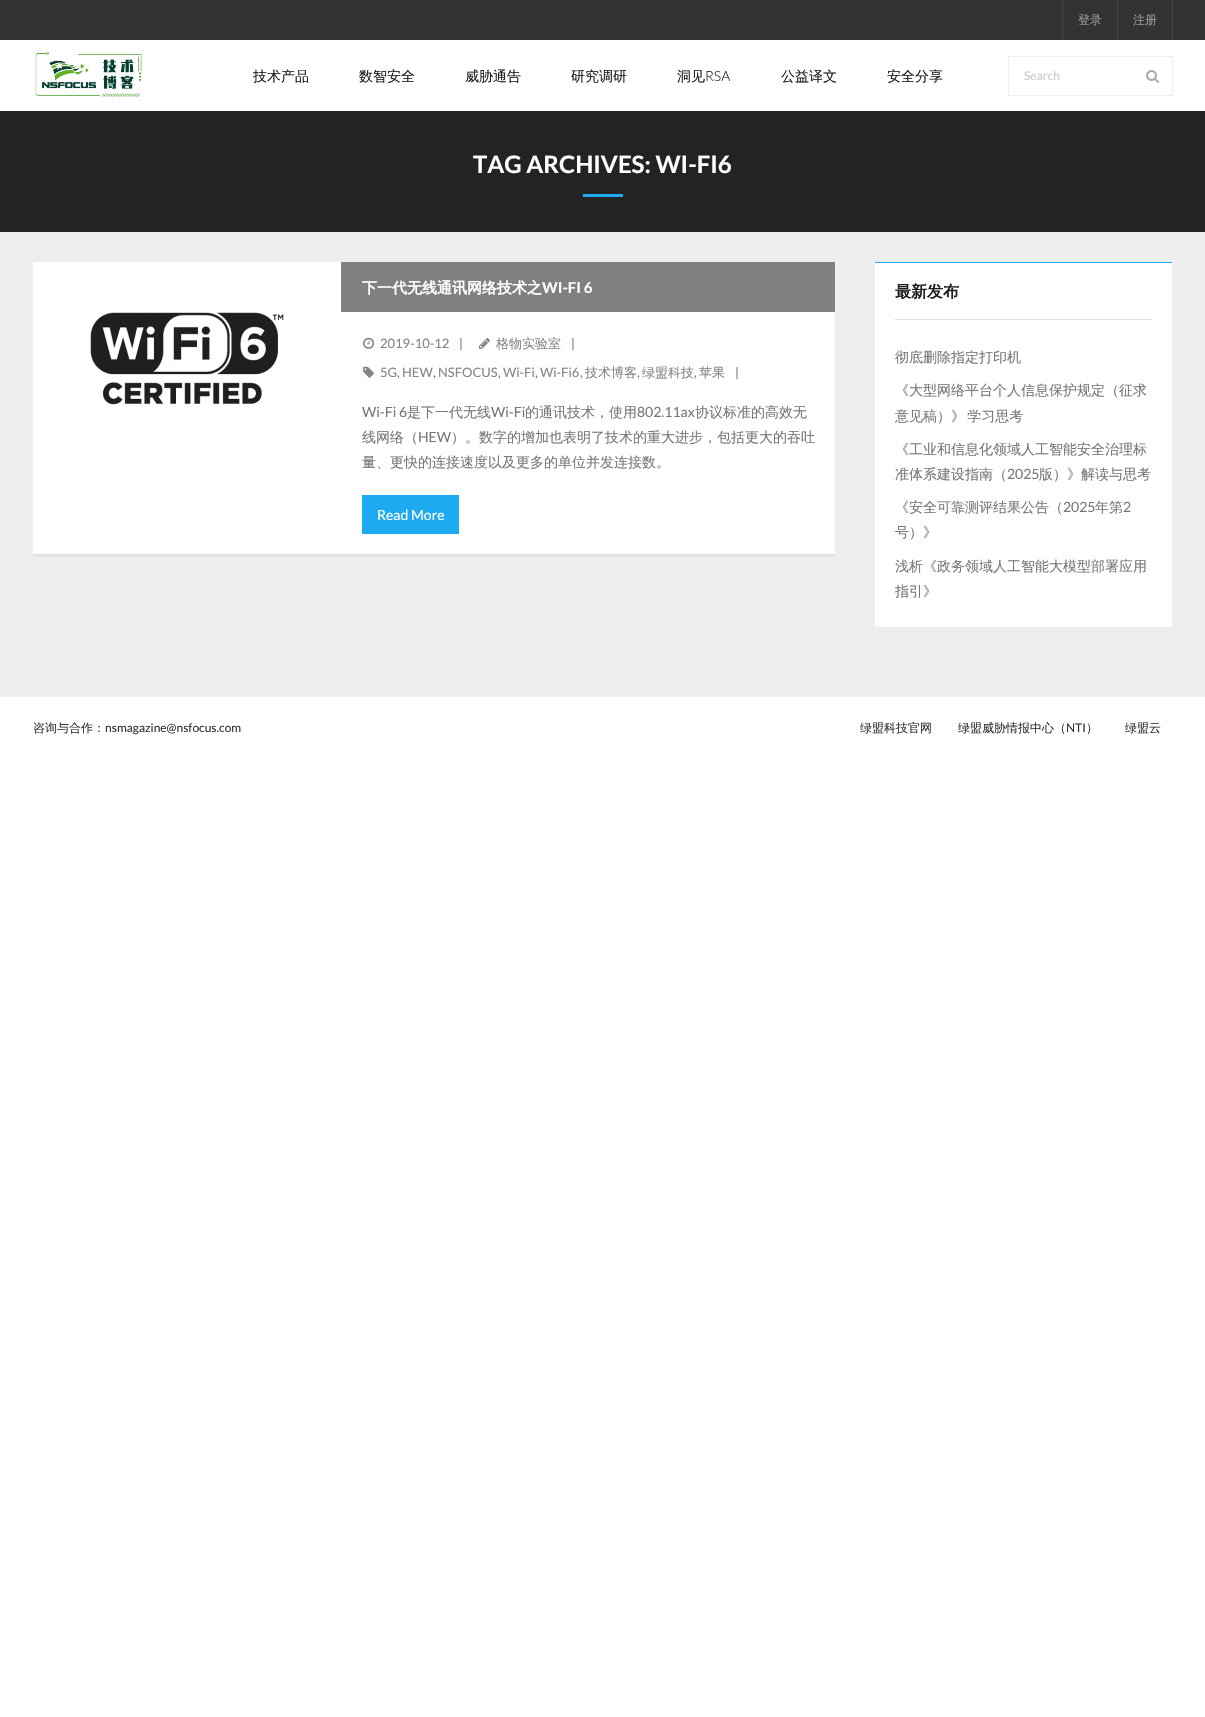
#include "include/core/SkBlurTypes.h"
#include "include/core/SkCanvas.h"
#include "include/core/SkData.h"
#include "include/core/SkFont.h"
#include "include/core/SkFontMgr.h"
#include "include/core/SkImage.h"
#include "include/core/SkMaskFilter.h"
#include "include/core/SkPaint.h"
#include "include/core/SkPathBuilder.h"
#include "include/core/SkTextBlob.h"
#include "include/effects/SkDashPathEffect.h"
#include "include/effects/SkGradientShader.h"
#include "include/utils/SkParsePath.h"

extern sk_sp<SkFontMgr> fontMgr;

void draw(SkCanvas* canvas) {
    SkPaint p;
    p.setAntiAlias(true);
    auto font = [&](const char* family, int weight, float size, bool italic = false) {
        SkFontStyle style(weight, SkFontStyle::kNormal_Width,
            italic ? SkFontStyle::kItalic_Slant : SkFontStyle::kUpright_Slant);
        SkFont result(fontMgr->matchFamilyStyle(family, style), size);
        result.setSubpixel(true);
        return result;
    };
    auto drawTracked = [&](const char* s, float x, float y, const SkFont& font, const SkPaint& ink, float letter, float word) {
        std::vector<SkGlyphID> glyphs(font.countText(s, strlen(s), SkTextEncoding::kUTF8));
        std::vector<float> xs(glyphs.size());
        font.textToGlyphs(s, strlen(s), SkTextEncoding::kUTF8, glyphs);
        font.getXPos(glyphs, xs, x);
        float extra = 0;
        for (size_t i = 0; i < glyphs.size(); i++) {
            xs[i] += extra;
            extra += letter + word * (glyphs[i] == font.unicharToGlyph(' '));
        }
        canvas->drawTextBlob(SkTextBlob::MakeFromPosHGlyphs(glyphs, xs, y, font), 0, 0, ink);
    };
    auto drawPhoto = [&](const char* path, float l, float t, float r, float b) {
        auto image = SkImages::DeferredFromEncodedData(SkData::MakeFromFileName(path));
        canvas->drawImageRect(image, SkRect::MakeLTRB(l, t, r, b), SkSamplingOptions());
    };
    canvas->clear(0xFFFFFFFF);
    {
        const struct { float l, t, r, b; SkColor color; } items[] = {
            {0, 232, 1205, 697, 0xFFEEEEEE},
            {0, 0, 1205, 40, 0xFF333333},
            {1062, 0, 1063, 40, 0xFF444444},
        };
        for (auto [l, t, r, b, color] : items) {
            p.setColor(color);
            canvas->drawRect(SkRect::MakeLTRB(l, t, r, b), p);
        }
    }
    auto font1 = font("WenQuanYi Zen Hei", 500, 12);
    p.setColor(0xFF999999);
    canvas->drawString("登录", 1078, 24, font1, p);
    p.setColor(0xFF444444);
    canvas->drawRect(SkRect::MakeLTRB(1172, 0, 1173, 40), p);
    canvas->drawRect(SkRect::MakeLTRB(1117, 0, 1118, 40), p);
    p.setColor(0xFF999999);
    canvas->drawString("注册", 1133, 24, font1, p);
    drawPhoto("media/1.png", 35, 52, 142, 97);
    auto font2 = font("WenQuanYi Zen Hei", 500, 14);
    p.setColor(0xFF1E1E1E);
    {
        const struct { const char* s; float x, y; } items[] = {
            {"技术产品", 253, 81},
            {"数智安全", 359, 81},
            {"威胁通告", 465, 81},
            {"研究调研", 571, 81},
            {"洞见", 677, 81},
        };
        for (auto [s, x, y] : items) {
            canvas->drawString(s, x, y, font2, p);
        }
    }
    auto font3 = font("Lato", 300, 14);
    canvas->drawString("RSA", 705, 81, font3, p);
    canvas->drawString("公益译文", 781, 81, font2, p);
    canvas->drawString("安全分享", 887, 81, font2, p);
    p.setStyle(SkPaint::kStroke_Style);
    p.setStrokeWidth(1);
    p.setColor(0xFFEEEEEE);
    canvas->drawRect(SkRect::MakeLTRB(1008.5f, 56.5f, 1172.5f, 95.5f), p);
    auto font4 = font("Lato", 400, 12);
    p.setStyle(SkPaint::kFill_Style);
    p.setColor(0xFFCACACA);
    canvas->drawString("Search", 1024, 80, font4, p);
    drawPhoto("media/2.png", 1146, 70, 1159, 83);
    p.setColor(0xFF232323);
    canvas->drawRect(SkRect::MakeLTRB(0, 111, 1205, 232), p);
    auto font5 = font("Lato", 700, 24);
    p.setColor(0xFFFFFFFF);
    canvas->drawString("TAG ARCHIVES: WI-FI6", 473, 173, font5, p);
    {
        const struct { float l, t, r, b; SkColor color; } items[] = {
            {583, 194, 623, 197, 0xFF1EAAF1},
            {33, 312, 835, 554, 0xFFFFFFFF},
            {33, 554, 835, 557, 0xFFE2E2E2},
            {33, 262, 341, 312, 0xFFFFFFFF},
        };
        for (auto [l, t, r, b, color] : items) {
            p.setColor(color);
            canvas->drawRect(SkRect::MakeLTRB(l, t, r, b), p);
        }
    }
    drawPhoto("media/3.png", 90, 312, 284, 405);
    p.setColor(0xFF808080);
    canvas->drawRect(SkRect::MakeLTRB(341, 262, 835, 312), p);
    auto font6 = font("WenQuanYi Zen Hei", 700, 15);
    p.setColor(0xFFFFFFFF);
    canvas->drawString("下一代无线通讯网络技术之", 362, 293, font6, p);
    auto font7 = font("Lato", 700, 15);
    canvas->drawString("WI-FI 6", 542, 293, font7, p);
    drawPhoto("media/4.png", 363, 337, 375, 349);
    auto font8 = font("Lato", 400, 13);
    p.setColor(0xFF858585);
    canvas->drawString("2019-10-12", 380, 348, font8, p);
    p.setColor(0xFF777777);
    canvas->drawString("|", 459, 348, font8, p);
    drawPhoto("media/5.png", 479, 338, 490, 349);
    auto font9 = font("WenQuanYi Zen Hei", 500, 13);
    p.setColor(0xFF858585);
    canvas->drawString("格物实验室", 496, 348, font9, p);
    p.setColor(0xFF777777);
    canvas->drawString("|", 571, 348, font8, p);
    drawPhoto("media/6.png", 363, 366, 374, 378);
    p.setColor(0xFF858585);
    canvas->drawString("5G", 380, 377, font8, p);
    p.setColor(0xFF777777);
    canvas->drawString(",", 397, 377, font8, p);
    p.setColor(0xFF858585);
    canvas->drawString("HEW", 402, 377, font8, p);
    p.setColor(0xFF777777);
    canvas->drawString(",", 433, 377, font8, p);
    p.setColor(0xFF858585);
    canvas->drawString("NSFOCUS", 438, 377, font8, p);
    p.setColor(0xFF777777);
    canvas->drawString(",", 498, 377, font8, p);
    p.setColor(0xFF858585);
    canvas->drawString("Wi-Fi", 503, 377, font8, p);
    p.setColor(0xFF777777);
    canvas->drawString(",", 535, 377, font8, p);
    p.setColor(0xFF858585);
    canvas->drawString("Wi-Fi6", 540, 377, font8, p);
    p.setColor(0xFF777777);
    canvas->drawString(",", 580, 377, font8, p);
    p.setColor(0xFF858585);
    canvas->drawString("技术博客", 585, 377, font9, p);
    p.setColor(0xFF777777);
    canvas->drawString(",", 637, 377, font8, p);
    p.setColor(0xFF858585);
    canvas->drawString("绿盟科技", 642, 377, font9, p);
    p.setColor(0xFF777777);
    canvas->drawString(",", 694, 377, font8, p);
    p.setColor(0xFF858585);
    canvas->drawString("苹果", 699, 377, font9, p);
    p.setColor(0xFF777777);
    canvas->drawString("|", 735, 377, font8, p);
    auto font10 = font("Lato", 400, 14);
    canvas->drawString("Wi-Fi 6", 362, 417, font10, p);
    canvas->drawString("是下一代无线", 407, 417, font2, p);
    canvas->drawString("Wi-Fi", 491, 417, font10, p);
    canvas->drawString("的通讯技术，使用", 525, 417, font2, p);
    canvas->drawString("802.11ax", 637, 417, font10, p);
    canvas->drawString("协议标准的高效无", 695, 417, font2, p);
    canvas->drawString("线网络（", 362, 442, font2, p);
    canvas->drawString("HEW", 418, 442, font10, p);
    canvas->drawString("）。数字的增加也表明了技术的重大进步，包括更大的吞吐", 451, 442, font2, p);
    canvas->drawString("量、更快的连接速度以及更多的单位并发连接数。", 362, 467, font2, p);
    p.setColor(0xFF1EAAF1);
    canvas->drawRect(SkRect::MakeLTRB(362, 495, 459, 534), p);
    p.setColor(0xFFFFFFFF);
    canvas->drawString("Read More", 377, 520, font10, p);
    {
        const struct { float l, t, r, b; SkColor color; } items[] = {
            {875, 263, 1172, 627, 0xFFFFFFFF},
            {875, 262, 1172, 263, 0xFF1EAAF1},
            {895, 319, 1152, 320, 0xFFE2E2E2},
        };
        for (auto [l, t, r, b, color] : items) {
            p.setColor(color);
            canvas->drawRect(SkRect::MakeLTRB(l, t, r, b), p);
        }
    }
    auto font11 = font("WenQuanYi Zen Hei", 700, 16);
    p.setColor(0xFF1E1E1E);
    canvas->drawString("最新发布", 895, 297, font11, p);
    p.setColor(0xFF777777);
    canvas->drawString("彻底删除指定打印机", 895, 362, font2, p);
    canvas->drawString("《大型网络平台个人信息保护规定（征求", 895, 395, font2, p);
    drawTracked("意见稿）》 学习思考", 895, 421, font2, p, 0, -2);
    canvas->drawString("《工业和信息化领域人工智能安全治理标", 895, 454, font2, p);
    canvas->drawString("准体系建设指南（", 895, 479, font2, p);
    canvas->drawString("2025", 1007, 479, font10, p);
    canvas->drawString("版）》解读与思考", 1039, 479, font2, p);
    canvas->drawString("《安全可靠测评结果公告（", 895, 512, font2, p);
    canvas->drawString("2025", 1063, 512, font10, p);
    canvas->drawString("年第", 1095, 512, font2, p);
    canvas->drawString("2", 1123, 512, font10, p);
    {
        const struct { const char* s; float x, y; } items[] = {
            {"号）》", 895, 537},
            {"浅析《政务领域人工智能大模型部署应用", 895, 571},
            {"指引》", 895, 596},
        };
        for (auto [s, x, y] : items) {
            canvas->drawString(s, x, y, font2, p);
        }
    }
    p.setColor(0xFF333333);
    canvas->drawString("咨询与合作：", 33, 732, font1, p);
    canvas->drawString("nsmagazine@nsfocus.com", 105, 732, font4, p);
    canvas->drawString("绿盟科技官网", 860, 732, font1, p);
    canvas->drawString("绿盟威胁情报中心（", 958, 732, font1, p);
    canvas->drawString("NTI", 1066, 732, font4, p);
    canvas->drawString("）", 1086, 732, font1, p);
    canvas->drawString("绿盟云", 1125, 732, font1, p);
}
